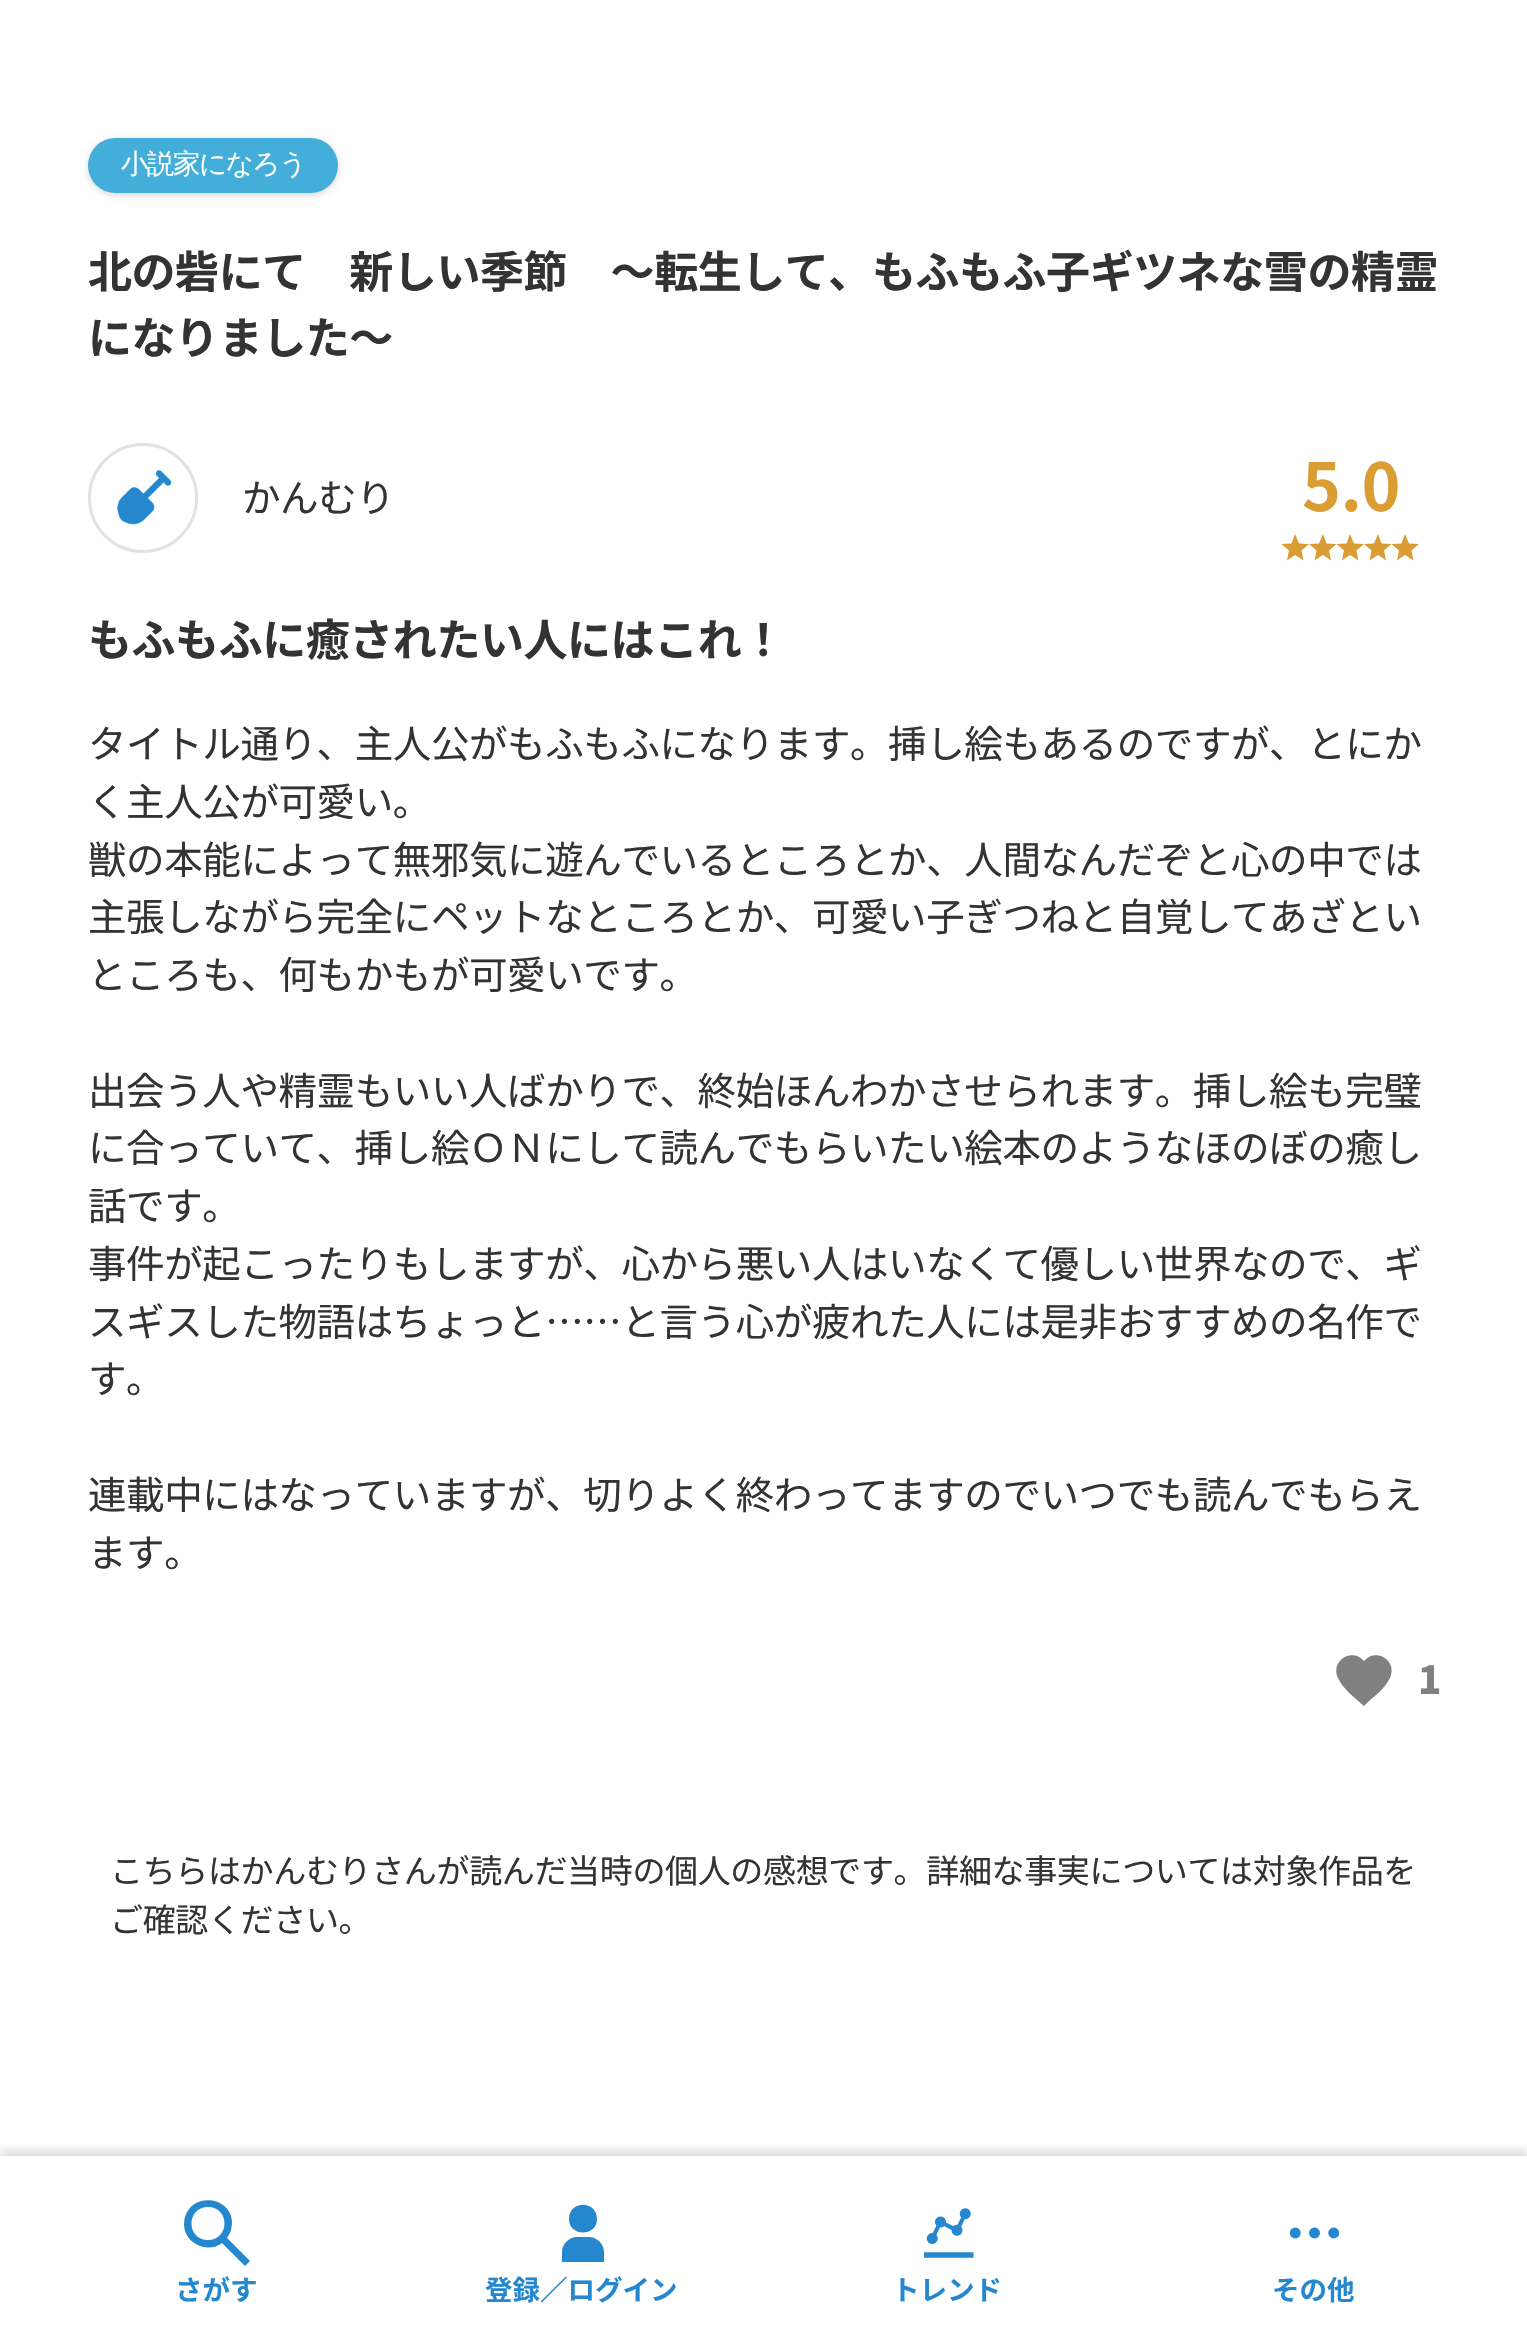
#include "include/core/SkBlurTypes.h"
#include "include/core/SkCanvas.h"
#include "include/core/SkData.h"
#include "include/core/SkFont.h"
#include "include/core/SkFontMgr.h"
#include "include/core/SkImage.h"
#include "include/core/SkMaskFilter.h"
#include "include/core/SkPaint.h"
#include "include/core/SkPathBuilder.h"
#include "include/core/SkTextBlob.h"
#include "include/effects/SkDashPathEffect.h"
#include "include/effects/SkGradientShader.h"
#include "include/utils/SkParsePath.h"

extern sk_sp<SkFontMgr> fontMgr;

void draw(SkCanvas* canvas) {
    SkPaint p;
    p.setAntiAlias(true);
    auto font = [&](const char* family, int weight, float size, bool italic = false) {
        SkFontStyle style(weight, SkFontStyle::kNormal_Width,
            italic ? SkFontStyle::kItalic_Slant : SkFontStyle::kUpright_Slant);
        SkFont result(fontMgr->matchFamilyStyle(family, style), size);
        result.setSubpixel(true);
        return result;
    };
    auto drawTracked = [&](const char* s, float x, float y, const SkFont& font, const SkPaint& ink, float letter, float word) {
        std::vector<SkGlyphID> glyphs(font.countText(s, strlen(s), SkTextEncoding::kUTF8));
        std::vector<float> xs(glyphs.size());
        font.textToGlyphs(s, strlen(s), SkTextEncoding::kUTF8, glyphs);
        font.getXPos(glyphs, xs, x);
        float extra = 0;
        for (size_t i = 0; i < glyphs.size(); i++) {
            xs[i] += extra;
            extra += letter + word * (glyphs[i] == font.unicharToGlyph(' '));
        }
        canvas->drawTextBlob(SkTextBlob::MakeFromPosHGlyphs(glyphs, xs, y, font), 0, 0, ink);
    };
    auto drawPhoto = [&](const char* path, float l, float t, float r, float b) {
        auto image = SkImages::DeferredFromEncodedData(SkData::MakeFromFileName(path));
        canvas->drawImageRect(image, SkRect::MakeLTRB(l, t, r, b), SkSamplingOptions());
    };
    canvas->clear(0xFFFFFFFF);
    p.setColor(0xFFD7D7D7);
    p.setMaskFilter(SkMaskFilter::MakeBlur(kNormal_SkBlurStyle, 3));
    canvas->drawRoundRect(SkRect::MakeLTRB(88, 140, 338, 195), 27.5f, 27.5f, p);
    p.setMaskFilter(nullptr);
    p.setColor(0xFF42AED9);
    canvas->drawRoundRect(SkRect::MakeLTRB(88, 138, 338, 193), 27.5f, 27.5f, p);
    auto font1 = font("WenQuanYi Zen Hei", 500, 27.5f);
    p.setColor(0xFFFFFFFF);
    drawTracked("小説家になろう", 121, 173, font1, p, -1.5f, 0);
    auto font2 = font("Noto Sans JP", 700, 44);
    p.setColor(0xFF333333);
    drawTracked("北の砦にて　新しい季節　～転生して、もふもふ子ギツネな雪の精霊", 88, 288, font2, p, -0.45f, 0);
    drawTracked("になりました～", 88, 354, font2, p, -0.45f, 0);
    p.setStyle(SkPaint::kStroke_Style);
    p.setStrokeWidth(3);
    p.setColor(0xFFE2E2E2);
    canvas->drawCircle(143, 498, 53.5f, p);
    drawPhoto("media/1.png", 117, 470, 171, 525);
    auto font3 = font("Noto Sans JP", 400, 38.5f);
    p.setStyle(SkPaint::kFill_Style);
    p.setColor(0xFF333333);
    drawTracked("かんむり", 242, 512, font3, p, -0.4f, 0);
    auto font4 = font("Noto Sans JP", 700, 66);
    p.setColor(0xFFDA9D34);
    drawTracked("5.0", 1302, 511, font4, p, -0.5f, 0);
    canvas->drawPath(SkPathBuilder().moveTo(1295, 534).lineTo(1299, 543.5f).lineTo(1309, 544).lineTo(1301.5f, 550.5f).lineTo(1303.5f, 560.5f).lineTo(1295, 555).lineTo(1287, 560.5f).lineTo(1289, 550.5f).lineTo(1281.5f, 544).lineTo(1291.5f, 543.5f).close().moveTo(1323, 534).lineTo(1326.5f, 543.5f).lineTo(1336.5f, 544).lineTo(1329, 550.5f).lineTo(1331, 560.5f).lineTo(1323, 555).lineTo(1314.5f, 560.5f).lineTo(1316.5f, 550.5f).lineTo(1309, 544).lineTo(1319, 543.5f).close().detach(), p);
    canvas->drawPath(SkPathBuilder().moveTo(1350, 534).lineTo(1354, 543.5f).lineTo(1364, 544).lineTo(1356.5f, 550.5f).lineTo(1358.5f, 560.5f).lineTo(1350, 555).lineTo(1342, 560.5f).lineTo(1344, 550.5f).lineTo(1336.5f, 544).lineTo(1346.5f, 543.5f).close().moveTo(1378, 534).lineTo(1381.5f, 543.5f).lineTo(1391.5f, 544).lineTo(1384, 550.5f).lineTo(1386, 560.5f).lineTo(1378, 555).lineTo(1369.5f, 560.5f).lineTo(1371.5f, 550.5f).lineTo(1364, 544).lineTo(1374, 543.5f).close().detach(), p);
    canvas->drawPath(SkPathBuilder().moveTo(1405, 534).lineTo(1409, 543.5f).lineTo(1419, 544).lineTo(1411.5f, 550.5f).lineTo(1413.5f, 560.5f).lineTo(1405, 555).lineTo(1397, 560.5f).lineTo(1399, 550.5f).lineTo(1391.5f, 544).lineTo(1401.5f, 543.5f).close().detach(), p);
    p.setColor(0xFF333333);
    drawTracked("もふもふに癒されたい人にはこれ！", 88, 656, font2, p, -0.45f, 0);
    {
        const struct { const char* s; float x, y; } items[] = {
            {"タイトル通り、主人公がもふもふになります。挿し絵もあるのですが、とにか", 88, 758},
            {"く主人公が可愛い。", 88, 816},
            {"獣の本能によって無邪気に遊んでいるところとか、人間なんだぞと心の中では", 88, 874},
            {"主張しながら完全にペットなところとか、可愛い子ぎつねと自覚してあざとい", 88, 931},
            {"ところも、何もかもが可愛いです。", 88, 989},
            {"出会う人や精霊もいい人ばかりで、終始ほんわかさせられます。挿し絵も完璧", 88, 1105},
            {"に合っていて、挿し絵ＯＮにして読んでもらいたい絵本のようなほのぼの癒し", 88, 1162},
            {"話です。", 88, 1220},
            {"事件が起こったりもしますが、心から悪い人はいなくて優しい世界なので、ギ", 88, 1278},
            {"スギスした物語はちょっと……と言う心が疲れた人には是非おすすめの名作で", 88, 1336},
            {"す。", 88, 1393},
            {"連載中にはなっていますが、切りよく終わってますのでいつでも読んでもらえ", 88, 1509},
            {"ます。", 88, 1567},
        };
        for (auto [s, x, y] : items) {
            drawTracked(s, x, y, font3, p, -0.4f, 0);
        }
    }
    p.setColor(0xFF808080);
    canvas->drawPath(SkPathBuilder().moveTo(1364, 1706).cubicTo(1355, 1698, 1343, 1689, 1338, 1678).cubicTo(1330, 1661, 1352, 1647, 1364, 1661).cubicTo(1376, 1647, 1398, 1661, 1390, 1678).cubicTo(1385, 1688, 1376, 1695, 1368, 1702).close().detach(), p);
    auto font5 = font("Noto Sans JP", 900, 38.5f);
    drawTracked("1", 1418, 1694, font5, p, -0.4f, 0);
    auto font6 = font("Noto Sans JP", 400, 33);
    p.setColor(0xFF333333);
    drawTracked("こちらはかんむりさんが読んだ当時の個人の感想です。詳細な事実については対象作品を", 110, 1883, font6, p, -0.35f, 0);
    drawTracked("ご確認ください。", 110, 1932, font6, p, -0.35f, 0);
    canvas->save();
    canvas->clipRect(SkRect::MakeLTRB(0, 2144, 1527, 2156));
    p.setColor(0x33333333);
    p.setMaskFilter(SkMaskFilter::MakeBlur(kNormal_SkBlurStyle, 5.5f));
    canvas->drawRect(SkRect::MakeLTRB(0, 2151, 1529, 2327), p);
    p.setMaskFilter(nullptr);
    canvas->restore();
    p.setColor(0xFF2588CF);
    canvas->drawPath(SkPathBuilder().moveTo(245, 2266).lineTo(222, 2243).cubicTo(212, 2251, 196, 2248, 188, 2237).cubicTo(184, 2231, 183, 2224, 185, 2217).cubicTo(192, 2192, 230, 2196, 232, 2221).cubicTo(232, 2227, 231, 2233, 227, 2238).lineTo(250, 2261).close().moveTo(208, 2240).cubicTo(230, 2240, 230, 2207, 208, 2207).cubicTo(186, 2207, 186, 2240, 208, 2240).detach(), p);
    auto font7 = font("Noto Sans JP", 700, 27.5f);
    canvas->drawString("さがす", 175, 2300, font7, p);
    canvas->drawPath(SkPathBuilder().moveTo(562, 2262).lineTo(604, 2262).lineTo(604, 2252).cubicTo(604, 2244, 597, 2237, 589, 2237).lineTo(577, 2237).cubicTo(569, 2237, 562, 2244, 562, 2252).close().moveTo(569, 2219).cubicTo(569, 2237, 597, 2237, 597, 2219).cubicTo(597, 2200, 569, 2200, 569, 2219).detach(), p);
    canvas->drawString("登録／ログイン", 485, 2300, font7, p);
    drawPhoto("media/2.png", 924, 2208, 974, 2258);
    canvas->drawString("トレンド", 892, 2300, font7, p);
    drawPhoto("media/3.png", 1289, 2227, 1340, 2239);
    canvas->drawString("その他", 1272, 2300, font7, p);
}
